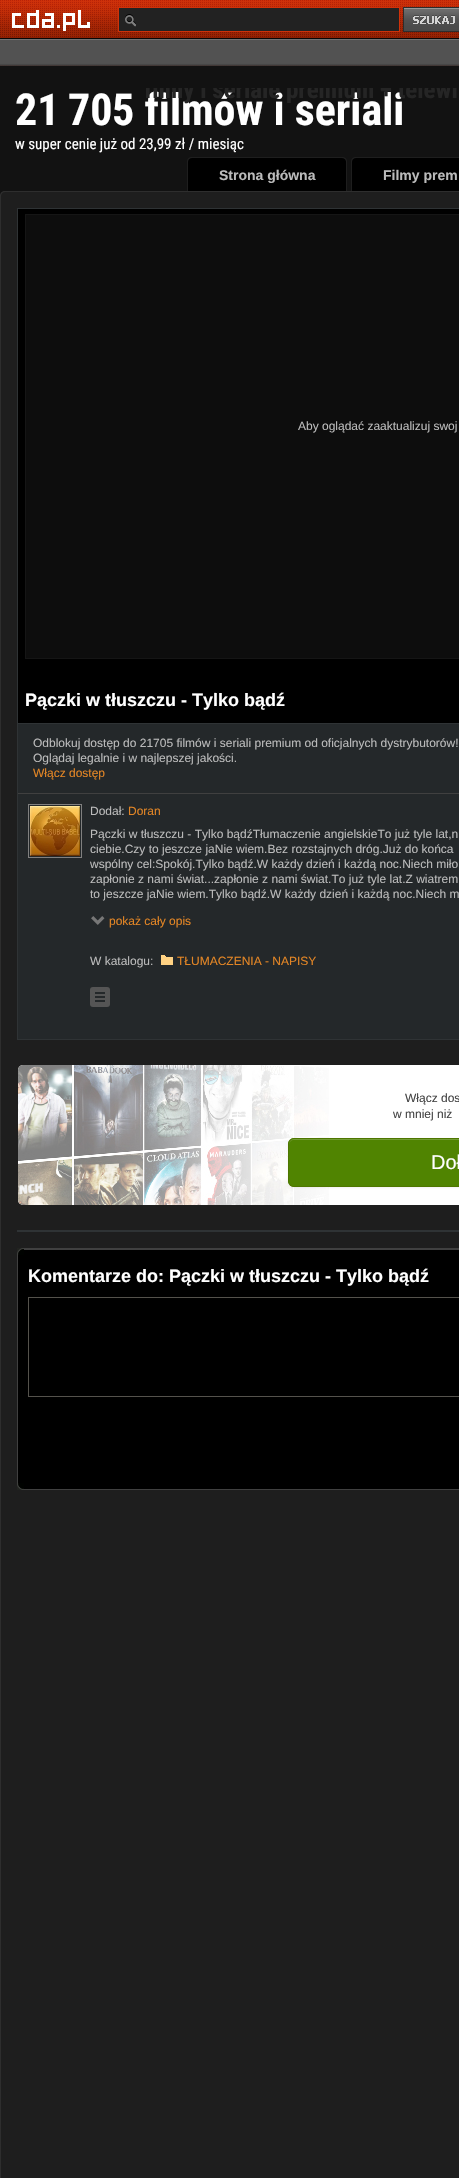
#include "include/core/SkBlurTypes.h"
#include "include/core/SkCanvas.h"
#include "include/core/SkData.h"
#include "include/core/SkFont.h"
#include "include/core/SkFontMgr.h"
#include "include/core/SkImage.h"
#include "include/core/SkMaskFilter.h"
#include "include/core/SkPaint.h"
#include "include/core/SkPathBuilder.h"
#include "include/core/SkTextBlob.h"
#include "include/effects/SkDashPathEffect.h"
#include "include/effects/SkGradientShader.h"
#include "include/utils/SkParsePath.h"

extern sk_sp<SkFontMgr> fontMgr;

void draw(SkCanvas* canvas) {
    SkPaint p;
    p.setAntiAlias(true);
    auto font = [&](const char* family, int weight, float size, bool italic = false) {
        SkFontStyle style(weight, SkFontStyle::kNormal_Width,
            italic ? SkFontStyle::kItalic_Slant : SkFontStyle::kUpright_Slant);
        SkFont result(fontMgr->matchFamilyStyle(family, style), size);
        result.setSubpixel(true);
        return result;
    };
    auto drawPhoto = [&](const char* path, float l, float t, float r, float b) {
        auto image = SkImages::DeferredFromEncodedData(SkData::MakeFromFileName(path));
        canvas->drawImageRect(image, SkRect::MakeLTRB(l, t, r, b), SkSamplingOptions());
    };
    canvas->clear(0xFF121212);
    drawPhoto("media/1.png", 0, 0, 459, 66);
    drawPhoto("media/2.png", 12, 10, 90, 31);
    p.setColor(0xFF222222);
    canvas->drawRect(SkRect::MakeLTRB(118.5f, 7.5f, 399.5f, 31.5f), p);
    p.setStyle(SkPaint::kStroke_Style);
    p.setStrokeWidth(1);
    p.setColor(0xFFCF320A);
    canvas->drawRect(SkRect::MakeLTRB(118.5f, 7.5f, 399.5f, 31.5f), p);
    drawPhoto("media/3.png", 403, 7, 459, 32);
    drawPhoto("media/4.png", 125, 14, 136, 27);
    auto font1 = font("Roboto Condensed", 700, 44);
    p.setStyle(SkPaint::kFill_Style);
    p.setColor(0xFFFFFFFF);
    canvas->drawString("5 filmów i seriali", 112, 125, font1, p);
    canvas->save();
    canvas->clipRect(SkRect::MakeLTRB(144, 88, 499, 142));
    auto font2 = font("Roboto Condensed", 700, 25);
    p.setColor(0xFF252525);
    canvas->drawString("filmy i seriale premium + telewi", 144, 98, font2, p);
    canvas->restore();
    p.setColor(0xFFFFFFFF);
    canvas->drawString("21", 15, 125, font1, p);
    canvas->drawString("70", 68, 125, font1, p);
    auto font3 = font("Roboto Condensed", 400, 15);
    canvas->drawString("w super cenie już od 23,99 zł / miesiąc", 15, 149, font3, p);
    drawPhoto("media/5.png", 187, 157, 194, 164);
    drawPhoto("media/6.png", 340, 157, 347, 164);
    {
        const struct { float l, t, r, b; SkColor color; } items[] = {
            {194, 157, 340, 158, 0xFF1E1E1E},
            {188, 164, 194, 191, 0xFF000000},
            {187, 164, 188, 191, 0xFF1E1E1E},
            {194, 158, 340, 191, 0xFF000000},
        };
        for (auto [l, t, r, b, color] : items) {
            p.setColor(color);
            canvas->drawRect(SkRect::MakeLTRB(l, t, r, b), p);
        }
    }
    auto font4 = font("Liberation Sans", 700, 14);
    p.setColor(0xFFBBBBBB);
    canvas->drawString("Strona główna", 219, 180, font4, p);
    p.setColor(0xFF000000);
    canvas->drawRect(SkRect::MakeLTRB(340, 164, 346, 191), p);
    p.setColor(0xFF1E1E1E);
    canvas->drawRect(SkRect::MakeLTRB(346, 164, 347, 191), p);
    drawPhoto("media/5.png", 351, 157, 358, 164);
    {
        const struct { float l, t, r, b; SkColor color; } items[] = {
            {358, 157, 459, 158, 0xFF1E1E1E},
            {352, 164, 358, 191, 0xFF000000},
            {351, 164, 352, 191, 0xFF1E1E1E},
            {358, 158, 459, 191, 0xFF000000},
        };
        for (auto [l, t, r, b, color] : items) {
            p.setColor(color);
            canvas->drawRect(SkRect::MakeLTRB(l, t, r, b), p);
        }
    }
    p.setColor(0xFFBBBBBB);
    canvas->drawString("Filmy prem", 383, 180, font4, p);
    drawPhoto("media/7.png", 0, 191, 7, 198);
    {
        const struct { float l, t, r, b; SkColor color; } items[] = {
            {7, 192, 459, 198, 0xFF1E1E1E},
            {7, 191, 459, 192, 0xFF2E2E2E},
            {1, 198, 459, 2178, 0xFF1E1E1E},
            {0, 198, 1, 2178, 0xFF2E2E2E},
            {18, 209, 459, 723, 0xFF000000},
            {17, 208, 459, 209, 0xFF2F3335},
            {17, 208, 18, 724, 0xFF2F3335},
        };
        for (auto [l, t, r, b, color] : items) {
            p.setColor(color);
            canvas->drawRect(SkRect::MakeLTRB(l, t, r, b), p);
        }
    }
    p.setColor(0xFF0D0D0D);
    canvas->drawRect(SkRect::MakeLTRB(25.5f, 214.5f, 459.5f, 658.5f), p);
    p.setStyle(SkPaint::kStroke_Style);
    p.setColor(0xFF151515);
    canvas->drawRect(SkRect::MakeLTRB(25.5f, 214.5f, 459.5f, 658.5f), p);
    auto font5 = font("Liberation Sans", 400, 12);
    p.setStyle(SkPaint::kFill_Style);
    p.setColor(0xFFBBBBBB);
    canvas->drawString("Aby oglądać zaaktualizuj swoj", 298, 430, font5, p);
    auto font6 = font("Liberation Sans", 700, 18);
    p.setColor(0xFFFFFFFF);
    canvas->drawString("Pączki w tłuszczu - Tylko bądź", 25, 706, font6, p);
    p.setColor(0xFF24282A);
    canvas->drawRect(SkRect::MakeLTRB(17.5f, 723.5f, 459.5f, 1039.5f), p);
    p.setStyle(SkPaint::kStroke_Style);
    p.setColor(0xFF2F3335);
    canvas->drawRect(SkRect::MakeLTRB(17.5f, 723.5f, 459.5f, 1039.5f), p);
    p.setStyle(SkPaint::kFill_Style);
    p.setColor(0xFF404040);
    canvas->drawRect(SkRect::MakeLTRB(18, 793, 459, 794), p);
    p.setColor(0xFFBBBBBB);
    canvas->drawString("Odblokuj dostęp do 21705 filmów i seriali premium od oficjalnych dystrybutorów!", 33, 747, font5, p);
    canvas->drawString("Oglądaj legalnie i w najlepszej jakości.", 33, 762, font5, p);
    p.setColor(0xFFE28525);
    canvas->drawString("Włącz dostęp", 33, 777, font5, p);
    p.setStyle(SkPaint::kStroke_Style);
    p.setColor(0xFF808080);
    canvas->drawRect(SkRect::MakeLTRB(28.5f, 804.5f, 81.5f, 857.5f), p);
    drawPhoto("media/8.png", 30, 806, 80, 856);
    p.setStyle(SkPaint::kFill_Style);
    p.setColor(0xFFBBBBBB);
    canvas->drawString("Dodał:", 90, 815, font5, p);
    p.setColor(0xFFE28525);
    canvas->drawString("Doran", 128, 815, font5, p);
    p.setColor(0xFFBBBBBB);
    {
        const struct { const char* s; float x, y; } items[] = {
            {"Pączki w tłuszczu - Tylko bądźTłumaczenie angielskieTo już tyle lat,n", 90, 838},
            {"ciebie.Czy to jeszcze jaNie wiem.Bez rozstajnych dróg.Już do końca", 90, 853},
            {"wspólny cel:Spokój.Tylko bądź.W każdy dzień i każdą noc.Niech miło", 90, 868},
            {"zapłonie z nami świat...zapłonie z nami świat.To już tyle lat.Z wiatrem", 90, 883},
            {"to jeszcze jaNie wiem.Tylko bądź.W każdy dzień i każdą noc.Niech m", 90, 898},
        };
        for (auto [s, x, y] : items) {
            canvas->drawString(s, x, y, font5, p);
        }
    }
    drawPhoto("media/9.png", 91, 916, 105, 925);
    p.setColor(0xFFE28525);
    canvas->drawString("pokaż cały opis", 109, 925, font5, p);
    p.setColor(0xFFBBBBBB);
    canvas->drawString("W katalogu:", 90, 965, font5, p);
    drawPhoto("media/10.png", 161, 955, 173, 965);
    p.setColor(0xFFE28525);
    canvas->drawString("TŁUMACZENIA - NAPISY", 177, 965, font5, p);
    p.setColor(0xFF555555);
    canvas->drawRoundRect(SkRect::MakeLTRB(90, 987, 110, 1007), 3, 3, p);
    {
        const struct { float l, t, r, b; SkColor color; } items[] = {
            {95, 992, 105, 994, 0xFF24282A},
            {95, 996, 105, 998, 0xFF24282A},
            {95, 1000, 105, 1002, 0xFF24282A},
        };
        for (auto [l, t, r, b, color] : items) {
            p.setColor(color);
            canvas->drawRect(SkRect::MakeLTRB(l, t, r, b), p);
        }
    }
    p.setColor(0xFFFFFFFF);
    canvas->drawRoundRect(SkRect::MakeLTRB(18, 1065, 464, 1205), 5, 5, p);
    drawPhoto("media/11.png", 18, 1065, 329, 1205);
    p.setColor(0xFF444444);
    canvas->drawString("Włącz dos", 405, 1102, font5, p);
    canvas->drawString("w mniej niż", 393, 1118, font5, p);
    p.setColor(0x0D000000);
    p.setMaskFilter(SkMaskFilter::MakeBlur(kNormal_SkBlurStyle, 1));
    canvas->drawRoundRect(SkRect::MakeLTRB(288, 1139, 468, 1188), 6, 6, p);
    p.setMaskFilter(nullptr);
    p.setColor(0xFF508401);
    canvas->drawRoundRect(SkRect::MakeLTRB(288, 1138, 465, 1187), 6, 6, p);
    p.setColor(0xFF739D34);
    canvas->drawPath(SkPathBuilder().moveTo(294, 1140).lineTo(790, 1140).cubicTo(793, 1140, 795, 1142, 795, 1145).lineTo(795, 1144).cubicTo(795, 1141, 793, 1139, 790, 1139).lineTo(294, 1139).cubicTo(291, 1139, 289, 1141, 289, 1144).lineTo(289, 1145).cubicTo(289, 1142, 291, 1140, 294, 1140).close().detach(), p);
    p.setStyle(SkPaint::kStroke_Style);
    p.setColor(0xFF4E7600);
    canvas->drawRoundRect(SkRect::MakeLTRB(288.5f, 1138.5f, 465.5f, 1186.5f), 5.5f, 5.5f, p);
    auto font7 = font("Liberation Sans", 400, 20);
    p.setStyle(SkPaint::kFill_Style);
    p.setColor(0xFFFFFFFF);
    canvas->drawString("Doł", 431, 1169, font7, p);
    {
        const struct { float l, t, r, b; SkColor color; } items[] = {
            {17, 1230, 459, 1232, 0xFF2F3335},
            {18, 1250, 459, 1489, 0xFF000000},
            {17, 1248, 459, 1250, 0xFF404040},
        };
        for (auto [l, t, r, b, color] : items) {
            p.setColor(color);
            canvas->drawRect(SkRect::MakeLTRB(l, t, r, b), p);
        }
    }
    drawPhoto("media/12.png", 17, 1248, 24, 1255);
    canvas->drawRect(SkRect::MakeLTRB(17, 1255, 18, 1483), p);
    p.setColor(0xFFFFFFFF);
    canvas->drawString("Komentarze do: Pączki w tłuszczu - Tylko bądź", 28, 1282, font6, p);
    p.setStyle(SkPaint::kStroke_Style);
    p.setColor(0xFF54524C);
    canvas->drawRect(SkRect::MakeLTRB(28.5f, 1297.5f, 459.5f, 1396.5f), p);
    p.setStyle(SkPaint::kFill_Style);
    p.setColor(0xFF404040);
    canvas->drawRect(SkRect::MakeLTRB(17, 1489, 459, 1490), p);
    drawPhoto("media/13.png", 17, 1483, 24, 1490);
}
